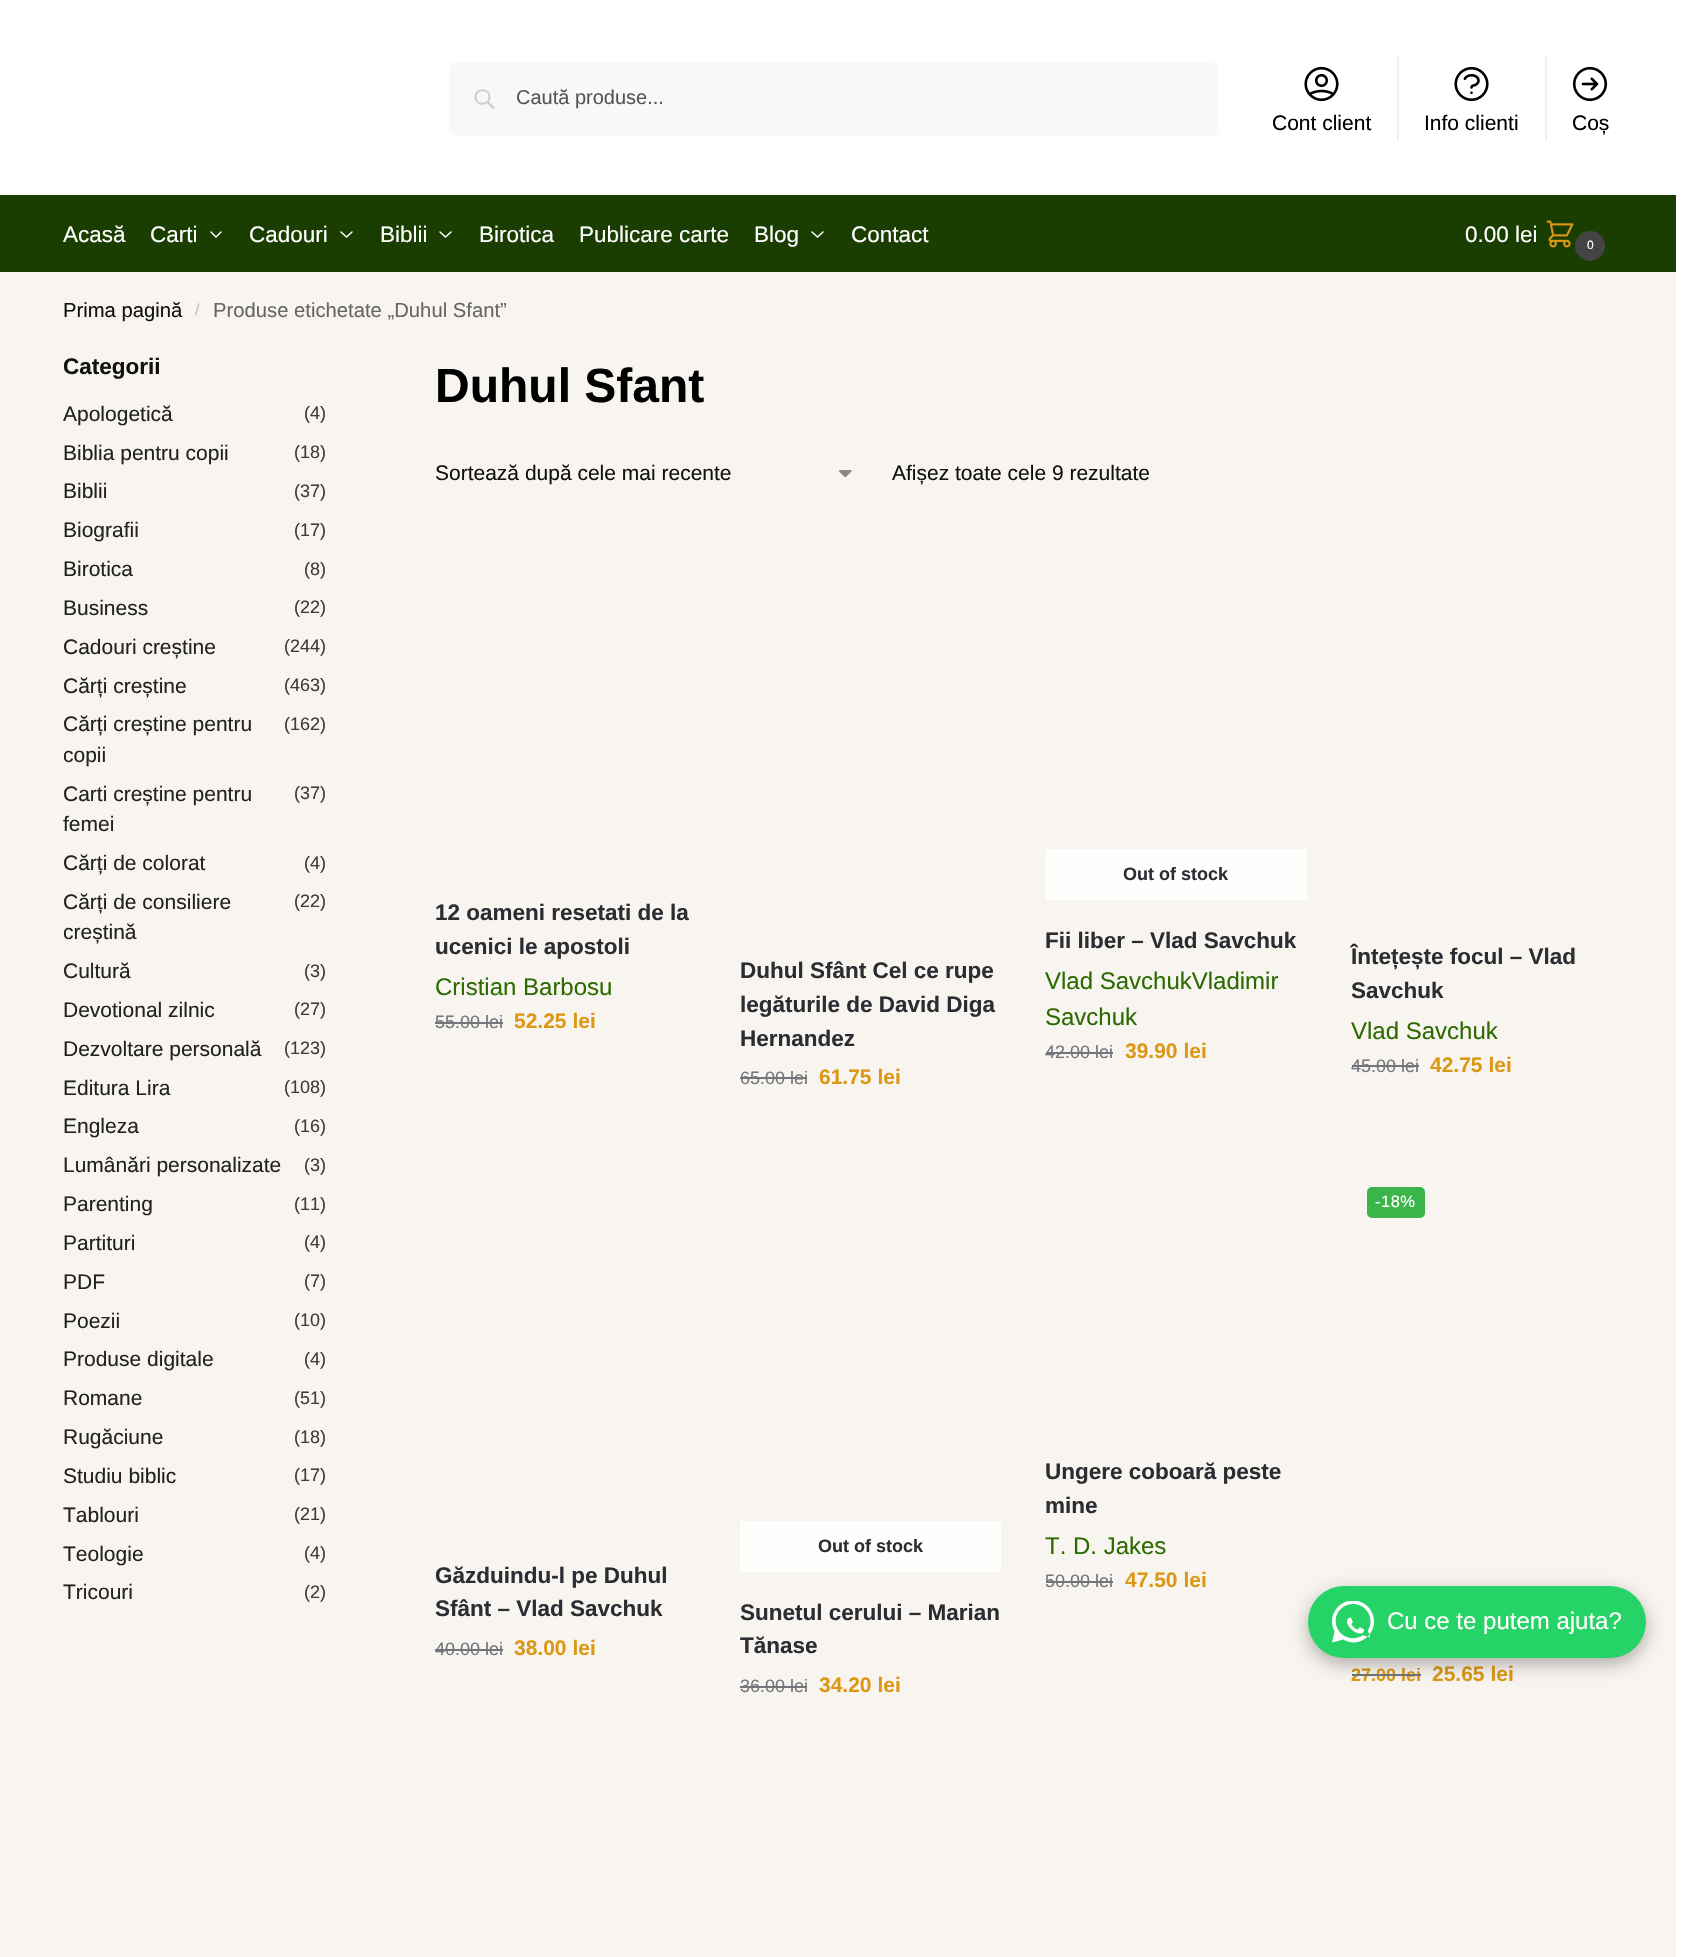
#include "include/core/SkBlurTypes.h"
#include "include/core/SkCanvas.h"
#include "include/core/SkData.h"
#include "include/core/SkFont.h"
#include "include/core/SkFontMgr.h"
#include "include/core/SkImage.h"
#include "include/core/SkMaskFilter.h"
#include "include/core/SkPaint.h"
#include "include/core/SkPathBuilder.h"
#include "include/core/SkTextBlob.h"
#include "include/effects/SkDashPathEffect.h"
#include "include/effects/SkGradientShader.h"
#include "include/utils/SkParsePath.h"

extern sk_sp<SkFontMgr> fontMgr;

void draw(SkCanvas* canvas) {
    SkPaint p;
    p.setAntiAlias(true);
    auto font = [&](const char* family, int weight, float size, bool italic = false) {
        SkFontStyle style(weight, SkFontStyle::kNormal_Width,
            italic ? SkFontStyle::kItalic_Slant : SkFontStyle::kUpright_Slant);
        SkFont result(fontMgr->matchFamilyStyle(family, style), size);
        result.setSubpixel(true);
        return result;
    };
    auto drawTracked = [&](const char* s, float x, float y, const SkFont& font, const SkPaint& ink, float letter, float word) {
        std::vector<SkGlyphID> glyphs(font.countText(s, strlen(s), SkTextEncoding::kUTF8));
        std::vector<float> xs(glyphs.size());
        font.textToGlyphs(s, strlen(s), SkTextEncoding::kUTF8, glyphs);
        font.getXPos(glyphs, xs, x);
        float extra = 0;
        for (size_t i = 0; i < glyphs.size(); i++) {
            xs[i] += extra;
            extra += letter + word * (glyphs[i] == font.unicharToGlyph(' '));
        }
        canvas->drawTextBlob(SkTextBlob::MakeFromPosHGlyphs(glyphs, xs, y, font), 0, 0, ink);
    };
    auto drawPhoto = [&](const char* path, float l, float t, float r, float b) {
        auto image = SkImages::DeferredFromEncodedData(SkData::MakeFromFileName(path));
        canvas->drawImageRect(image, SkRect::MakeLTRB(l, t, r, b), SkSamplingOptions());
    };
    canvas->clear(0xFFF8F5F0);
    p.setColor(0xFFFFFFFF);
    canvas->drawRect(SkRect::MakeLTRB(0, 0, 1676, 195), p);
    p.setColor(0x0D000000);
    p.setMaskFilter(SkMaskFilter::MakeBlur(kNormal_SkBlurStyle, 1.5f));
    canvas->drawRoundRect(SkRect::MakeLTRB(450, 63, 1217, 135), 8, 8, p);
    p.setMaskFilter(nullptr);
    p.setColor(0xFFF8F8F8);
    canvas->drawRoundRect(SkRect::MakeLTRB(450, 62, 1217, 134), 8, 8, p);
    p.setStyle(SkPaint::kStroke_Style);
    p.setStrokeWidth(2);
    p.setStrokeCap(SkPaint::kRound_Cap);
    p.setStrokeJoin(SkPaint::kRound_Join);
    p.setColor(0xFFCCCCCC);
    canvas->drawPath(SkPathBuilder().moveTo(493.5f, 108).lineTo(487.5f, 102).moveTo(489.5f, 97).cubicTo(489.5f, 106, 475.5f, 106, 475.5f, 97).cubicTo(475.5f, 88, 489.5f, 88, 489.5f, 97).close().detach(), p);
    auto font1 = font("Liberation Sans", 400, 20);
    p.setStyle(SkPaint::kFill_Style);
    p.setColor(0xFF555555);
    canvas->drawString("Caută produse...", 516, 104, font1, p);
    drawPhoto("media/1.png", 1304, 66, 1339, 102);
    auto font2 = font("Liberation Sans", 400, 21);
    p.setColor(0xFF000000);
    canvas->drawString("Cont client", 1272, 130, font2, p);
    p.setColor(0xFFEEEEEE);
    canvas->drawRect(SkRect::MakeLTRB(1397, 56, 1399, 140), p);
    drawPhoto("media/2.png", 1454, 66, 1489, 102);
    p.setColor(0xFF000000);
    canvas->drawString("Info clienti", 1424, 130, font2, p);
    p.setColor(0xFFEEEEEE);
    canvas->drawRect(SkRect::MakeLTRB(1545, 56, 1547, 140), p);
    drawPhoto("media/3.png", 1572, 66, 1608, 102);
    p.setColor(0xFF000000);
    canvas->drawString("Coș", 1572, 130, font2, p);
    p.setColor(0xFFFFFFFF);
    canvas->drawRect(SkRect::MakeLTRB(1676, 0, 1698, 1957), p);
    p.setColor(0xFF1A3E01);
    canvas->drawRect(SkRect::MakeLTRB(0, 195, 1676, 272), p);
    auto font3 = font("Liberation Sans", 400, 22.5f);
    p.setColor(0xFFFFFFFF);
    canvas->drawString("Acasă", 63, 242, font3, p);
    canvas->drawString("Carti", 150, 242, font3, p);
    p.setStyle(SkPaint::kStroke_Style);
    p.setStrokeWidth(1.5f);
    canvas->drawPath(SkPathBuilder().moveTo(221, 232).lineTo(216, 237).lineTo(211, 232).detach(), p);
    p.setStyle(SkPaint::kFill_Style);
    canvas->drawString("Cadouri", 249, 242, font3, p);
    p.setStyle(SkPaint::kStroke_Style);
    canvas->drawPath(SkPathBuilder().moveTo(352, 232).lineTo(346.5f, 237).lineTo(341, 232).detach(), p);
    p.setStyle(SkPaint::kFill_Style);
    canvas->drawString("Biblii", 380, 242, font3, p);
    p.setStyle(SkPaint::kStroke_Style);
    canvas->drawPath(SkPathBuilder().moveTo(451, 232).lineTo(445.5f, 237).lineTo(440, 232).detach(), p);
    p.setStyle(SkPaint::kFill_Style);
    {
        const struct { const char* s; float x, y; } items[] = {
            {"Birotica", 479, 242},
            {"Publicare carte", 579, 242},
            {"Blog", 754, 242},
        };
        for (auto [s, x, y] : items) {
            canvas->drawString(s, x, y, font3, p);
        }
    }
    p.setStyle(SkPaint::kStroke_Style);
    canvas->drawPath(SkPathBuilder().moveTo(823, 232).lineTo(817.5f, 237).lineTo(812, 232).detach(), p);
    p.setStyle(SkPaint::kFill_Style);
    canvas->drawString("Contact", 851, 242, font3, p);
    canvas->drawString("0.00 lei", 1465, 242, font3, p);
    drawPhoto("media/4.png", 1546, 220, 1574, 248);
    p.setColor(0xFF444444);
    canvas->drawCircle(1590, 246, 14, p);
    p.setStyle(SkPaint::kStroke_Style);
    p.setStrokeWidth(2);
    p.setStrokeCap(SkPaint::kButt_Cap);
    p.setStrokeJoin(SkPaint::kMiter_Join);
    canvas->drawCircle(1590, 246, 14, p);
    auto font4 = font("Liberation Sans", 400, 12);
    p.setStyle(SkPaint::kFill_Style);
    p.setColor(0xFFFFFFFF);
    canvas->drawString("0", 1587, 249, font4, p);
    auto font5 = font("Liberation Sans", 400, 20.25f);
    p.setColor(0xFF111111);
    canvas->drawString("Prima pagină", 63, 317, font5, p);
    auto font6 = font("Liberation Sans", 400, 16);
    p.setColor(0xFFBEBCB9);
    canvas->drawString("/", 195, 315, font6, p);
    p.setColor(0xFF666666);
    canvas->drawString("Produse etichetate „Duhul Sfant”", 213, 317, font5, p);
    auto font7 = font("Liberation Sans", 700, 22.5f);
    p.setColor(0xFF111111);
    canvas->drawString("Categorii", 63, 374, font7, p);
    p.setColor(0xFF222222);
    canvas->drawString("Apologetică", 63, 421, font2, p);
    auto font8 = font("Liberation Sans", 400, 18);
    p.setColor(0xFF3E3D3C);
    canvas->drawString("(4)", 304, 419, font8, p);
    p.setColor(0xFF222222);
    canvas->drawString("Biblia pentru copii", 63, 460, font2, p);
    p.setColor(0xFF3E3D3C);
    canvas->drawString("(18)", 294, 458, font8, p);
    p.setColor(0xFF222222);
    canvas->drawString("Biblii", 63, 498, font2, p);
    p.setColor(0xFF3E3D3C);
    canvas->drawString("(37)", 294, 497, font8, p);
    p.setColor(0xFF222222);
    canvas->drawString("Biografii", 63, 537, font2, p);
    p.setColor(0xFF3E3D3C);
    canvas->drawString("(17)", 294, 536, font8, p);
    p.setColor(0xFF222222);
    canvas->drawString("Birotica", 63, 576, font2, p);
    p.setColor(0xFF3E3D3C);
    canvas->drawString("(8)", 304, 575, font8, p);
    p.setColor(0xFF222222);
    canvas->drawString("Business", 63, 615, font2, p);
    p.setColor(0xFF3E3D3C);
    canvas->drawString("(22)", 294, 613, font8, p);
    p.setColor(0xFF222222);
    canvas->drawString("Cadouri creștine", 63, 654, font2, p);
    p.setColor(0xFF3E3D3C);
    canvas->drawString("(244)", 284, 652, font8, p);
    p.setColor(0xFF222222);
    canvas->drawString("Cărți creștine", 63, 693, font2, p);
    p.setColor(0xFF3E3D3C);
    canvas->drawString("(463)", 284, 691, font8, p);
    p.setColor(0xFF222222);
    canvas->drawString("Cărți creștine pentru", 63, 731, font2, p);
    p.setColor(0xFF3E3D3C);
    canvas->drawString("(162)", 284, 730, font8, p);
    p.setColor(0xFF222222);
    canvas->drawString("copii", 63, 762, font2, p);
    canvas->drawString("Carti creștine pentru", 63, 801, font2, p);
    p.setColor(0xFF3E3D3C);
    canvas->drawString("(37)", 294, 799, font8, p);
    p.setColor(0xFF222222);
    canvas->drawString("femei", 63, 831, font2, p);
    canvas->drawString("Cărți de colorat", 63, 870, font2, p);
    p.setColor(0xFF3E3D3C);
    canvas->drawString("(4)", 304, 869, font8, p);
    p.setColor(0xFF222222);
    canvas->drawString("Cărți de consiliere", 63, 909, font2, p);
    p.setColor(0xFF3E3D3C);
    canvas->drawString("(22)", 294, 907, font8, p);
    p.setColor(0xFF222222);
    canvas->drawString("creștină", 63, 939, font2, p);
    canvas->drawString("Cultură", 63, 978, font2, p);
    p.setColor(0xFF3E3D3C);
    canvas->drawString("(3)", 304, 977, font8, p);
    p.setColor(0xFF222222);
    canvas->drawString("Devotional zilnic", 63, 1017, font2, p);
    p.setColor(0xFF3E3D3C);
    canvas->drawString("(27)", 294, 1015, font8, p);
    p.setColor(0xFF222222);
    canvas->drawString("Dezvoltare personală", 63, 1056, font2, p);
    p.setColor(0xFF3E3D3C);
    canvas->drawString("(123)", 284, 1054, font8, p);
    p.setColor(0xFF222222);
    canvas->drawString("Editura Lira", 63, 1095, font2, p);
    p.setColor(0xFF3E3D3C);
    canvas->drawString("(108)", 284, 1093, font8, p);
    p.setColor(0xFF222222);
    canvas->drawString("Engleza", 63, 1133, font2, p);
    p.setColor(0xFF3E3D3C);
    canvas->drawString("(16)", 294, 1132, font8, p);
    p.setColor(0xFF222222);
    canvas->drawString("Lumânări personalizate", 63, 1172, font2, p);
    p.setColor(0xFF3E3D3C);
    canvas->drawString("(3)", 304, 1171, font8, p);
    p.setColor(0xFF222222);
    canvas->drawString("Parenting", 63, 1211, font2, p);
    p.setColor(0xFF3E3D3C);
    canvas->drawString("(11)", 294, 1210, font8, p);
    p.setColor(0xFF222222);
    canvas->drawString("Partituri", 63, 1250, font2, p);
    p.setColor(0xFF3E3D3C);
    canvas->drawString("(4)", 304, 1248, font8, p);
    p.setColor(0xFF222222);
    canvas->drawString("PDF", 63, 1289, font2, p);
    p.setColor(0xFF3E3D3C);
    canvas->drawString("(7)", 304, 1287, font8, p);
    p.setColor(0xFF222222);
    canvas->drawString("Poezii", 63, 1328, font2, p);
    p.setColor(0xFF3E3D3C);
    canvas->drawString("(10)", 294, 1326, font8, p);
    p.setColor(0xFF222222);
    canvas->drawString("Produse digitale", 63, 1366, font2, p);
    p.setColor(0xFF3E3D3C);
    canvas->drawString("(4)", 304, 1365, font8, p);
    p.setColor(0xFF222222);
    canvas->drawString("Romane", 63, 1405, font2, p);
    p.setColor(0xFF3E3D3C);
    canvas->drawString("(51)", 294, 1404, font8, p);
    p.setColor(0xFF222222);
    canvas->drawString("Rugăciune", 63, 1444, font2, p);
    p.setColor(0xFF3E3D3C);
    canvas->drawString("(18)", 294, 1443, font8, p);
    p.setColor(0xFF222222);
    canvas->drawString("Studiu biblic", 63, 1483, font2, p);
    p.setColor(0xFF3E3D3C);
    canvas->drawString("(17)", 294, 1481, font8, p);
    p.setColor(0xFF222222);
    canvas->drawString("Tablouri", 63, 1522, font2, p);
    p.setColor(0xFF3E3D3C);
    canvas->drawString("(21)", 294, 1520, font8, p);
    p.setColor(0xFF222222);
    canvas->drawString("Teologie", 63, 1561, font2, p);
    p.setColor(0xFF3E3D3C);
    canvas->drawString("(4)", 304, 1559, font8, p);
    p.setColor(0xFF222222);
    canvas->drawString("Tricouri", 63, 1599, font2, p);
    p.setColor(0xFF3E3D3C);
    canvas->drawString("(2)", 304, 1598, font8, p);
    auto font9 = font("Liberation Sans", 700, 48);
    p.setColor(0xFF000000);
    canvas->drawString("Duhul Sfant", 435, 402, font9, p);
    drawPhoto("media/5.png", 838, 470, 852, 478);
    p.setColor(0xFF111111);
    canvas->drawString("Sortează după cele mai recente", 435, 480, font2, p);
    canvas->drawString("Afișez toate cele 9 rezultate", 892, 480, font2, p);
    p.setColor(0xFF2C2D33);
    canvas->drawString("12 oameni resetati de la", 435, 920, font7, p);
    canvas->drawString("ucenici le apostoli", 435, 954, font7, p);
    auto font10 = font("Liberation Sans", 400, 24);
    p.setColor(0xFF2D6B01);
    canvas->drawString("Cristian Barbosu", 435, 995, font10, p);
    p.setColor(0xFF72767C);
    canvas->drawString("55.00 lei", 435, 1028, font8, p);
    canvas->drawRect(SkRect::MakeLTRB(435, 1022, 503, 1024), p);
    auto font11 = font("Liberation Sans", 700, 21);
    p.setColor(0xFFDC9814);
    canvas->drawString("52.25 lei", 514, 1028, font11, p);
    p.setColor(0xFF2C2D33);
    {
        const struct { const char* s; float x, y; } items[] = {
            {"Duhul Sfânt Cel ce rupe", 740, 978},
            {"legăturile de David Diga", 740, 1012},
            {"Hernandez", 740, 1046},
        };
        for (auto [s, x, y] : items) {
            canvas->drawString(s, x, y, font7, p);
        }
    }
    p.setColor(0xFF72767C);
    canvas->drawString("65.00 lei", 740, 1084, font8, p);
    canvas->drawRect(SkRect::MakeLTRB(740, 1077, 807, 1079), p);
    p.setColor(0xFFDC9814);
    canvas->drawString("61.75 lei", 819, 1084, font11, p);
    p.setColor(0xFFFEFEFD);
    canvas->drawRect(SkRect::MakeLTRB(1046, 849, 1307, 900), p);
    auto font12 = font("Liberation Sans", 700, 18);
    p.setColor(0xFF2C2D33);
    canvas->drawString("Out of stock", 1123, 880, font12, p);
    canvas->drawString("Fii liber – Vlad Savchuk", 1045, 948, font7, p);
    p.setColor(0xFF2D6B01);
    canvas->drawString("Vlad SavchukVladimir", 1045, 989, font10, p);
    canvas->drawString("Savchuk", 1045, 1025, font10, p);
    p.setColor(0xFF72767C);
    canvas->drawString("42.00 lei", 1045, 1058, font8, p);
    canvas->drawRect(SkRect::MakeLTRB(1046, 1052, 1113, 1054), p);
    p.setColor(0xFFDC9814);
    canvas->drawString("39.90 lei", 1125, 1058, font11, p);
    p.setColor(0xFF2C2D33);
    canvas->drawString("Întețește focul – Vlad", 1351, 964, font7, p);
    canvas->drawString("Savchuk", 1351, 998, font7, p);
    p.setColor(0xFF2D6B01);
    canvas->drawString("Vlad Savchuk", 1351, 1039, font10, p);
    p.setColor(0xFF72767C);
    canvas->drawString("45.00 lei", 1351, 1072, font8, p);
    canvas->drawRect(SkRect::MakeLTRB(1352, 1065, 1419, 1067), p);
    p.setColor(0xFFDC9814);
    canvas->drawString("42.75 lei", 1430, 1072, font11, p);
    p.setColor(0xFF2C2D33);
    canvas->drawString("Ungere coboară peste", 1045, 1479, font7, p);
    canvas->drawString("mine", 1045, 1513, font7, p);
    p.setColor(0xFF2D6B01);
    canvas->drawString("T. D. Jakes", 1045, 1554, font10, p);
    p.setColor(0xFF72767C);
    canvas->drawString("50.00 lei", 1045, 1587, font8, p);
    canvas->drawRect(SkRect::MakeLTRB(1046, 1581, 1113, 1583), p);
    p.setColor(0xFFDC9814);
    canvas->drawString("47.50 lei", 1125, 1587, font11, p);
    p.setColor(0xFF3BB54A);
    canvas->drawRoundRect(SkRect::MakeLTRB(1367, 1187, 1425, 1218), 5, 5, p);
    auto font13 = font("Liberation Sans", 400, 16.5f);
    p.setColor(0xFFFFFFFF);
    drawTracked("-18%", 1375, 1207, font13, p, 0.5f, 0);
    p.setColor(0xFFDC9814);
    canvas->drawString("27.00 lei", 1351, 1681, font12, p);
    p.setColor(0xFF72767C);
    canvas->drawRect(SkRect::MakeLTRB(1352, 1674, 1421, 1676), p);
    p.setColor(0xFFDC9814);
    canvas->drawString("25.65 lei", 1432, 1681, font11, p);
    p.setColor(0xFF2C2D33);
    canvas->drawString("Găzduindu-l pe Duhul", 435, 1583, font7, p);
    canvas->drawString("Sfânt – Vlad Savchuk", 435, 1616, font7, p);
    p.setColor(0xFF72767C);
    canvas->drawString("40.00 lei", 435, 1655, font8, p);
    canvas->drawRect(SkRect::MakeLTRB(435, 1649, 503, 1651), p);
    p.setColor(0xFFDC9814);
    canvas->drawString("38.00 lei", 514, 1655, font11, p);
    p.setColor(0xFFFEFEFD);
    canvas->drawRect(SkRect::MakeLTRB(740, 1521, 1001, 1572), p);
    p.setColor(0xFF2C2D33);
    canvas->drawString("Out of stock", 818, 1552, font12, p);
    canvas->drawString("Sunetul cerului – Marian", 740, 1620, font7, p);
    canvas->drawString("Tănase", 740, 1653, font7, p);
    p.setColor(0xFF72767C);
    canvas->drawString("36.00 lei", 740, 1692, font8, p);
    canvas->drawRect(SkRect::MakeLTRB(740, 1686, 807, 1688), p);
    p.setColor(0xFFDC9814);
    canvas->drawString("34.20 lei", 819, 1692, font11, p);
    p.setColor(0x4D000000);
    p.setMaskFilter(SkMaskFilter::MakeBlur(kNormal_SkBlurStyle, 9));
    canvas->drawRoundRect(SkRect::MakeLTRB(1308, 1592, 1646, 1664), 36, 36, p);
    p.setMaskFilter(nullptr);
    p.setColor(0xFF25D366);
    canvas->drawRoundRect(SkRect::MakeLTRB(1308, 1586, 1646, 1658), 36, 36, p);
    drawPhoto("media/6.png", 1332, 1601, 1374, 1643);
    p.setColor(0xFFFFFFFF);
    canvas->drawString("Cu ce te putem ajuta?", 1387, 1629, font10, p);
}
